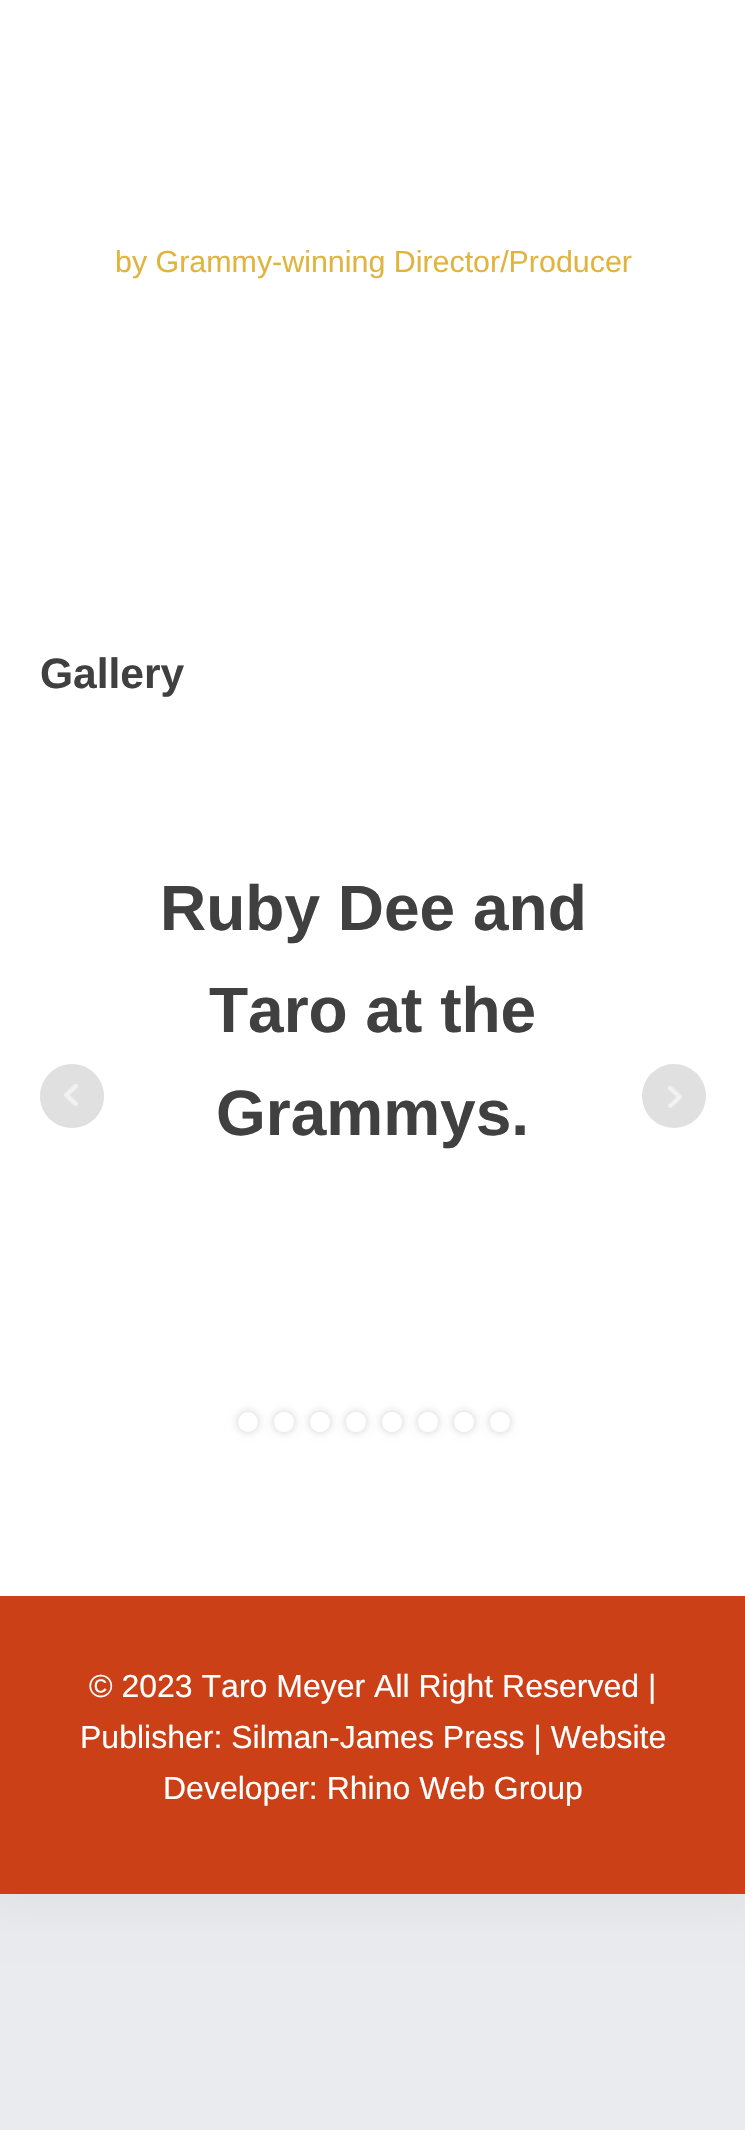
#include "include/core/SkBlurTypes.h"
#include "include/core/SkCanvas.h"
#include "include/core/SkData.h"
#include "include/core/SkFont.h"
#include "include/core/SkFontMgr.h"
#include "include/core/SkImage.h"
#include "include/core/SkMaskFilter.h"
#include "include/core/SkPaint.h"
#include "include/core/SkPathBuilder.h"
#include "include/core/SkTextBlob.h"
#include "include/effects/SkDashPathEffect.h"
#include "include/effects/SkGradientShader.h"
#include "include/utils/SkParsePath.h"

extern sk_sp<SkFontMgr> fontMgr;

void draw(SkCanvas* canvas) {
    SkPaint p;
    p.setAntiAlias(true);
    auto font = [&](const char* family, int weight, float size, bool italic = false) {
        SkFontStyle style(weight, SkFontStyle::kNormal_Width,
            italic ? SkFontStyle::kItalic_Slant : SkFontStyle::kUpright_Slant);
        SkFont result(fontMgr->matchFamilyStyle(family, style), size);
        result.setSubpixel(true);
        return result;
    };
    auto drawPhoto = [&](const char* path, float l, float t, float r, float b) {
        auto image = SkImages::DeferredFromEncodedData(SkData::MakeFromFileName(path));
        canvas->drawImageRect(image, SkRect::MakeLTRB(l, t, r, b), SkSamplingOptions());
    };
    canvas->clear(0xFFE9EBEE);
    p.setColor(0x0D000000);
    p.setMaskFilter(SkMaskFilter::MakeBlur(kNormal_SkBlurStyle, 20));
    canvas->drawRect(SkRect::MakeLTRB(-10, -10, 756, 1904), p);
    p.setMaskFilter(nullptr);
    p.setColor(0xFFFFFFFF);
    canvas->drawRect(SkRect::MakeLTRB(0, 0, 745, 1596), p);
    auto font1 = font("Liberation Sans", 400, 30.4f);
    p.setColor(0xFFE1B43F);
    canvas->drawString("by Grammy-winning Director/Producer", 115, 272, font1, p);
    auto font2 = font("Liberation Sans", 700, 42.5f);
    p.setColor(0xFF404040);
    canvas->drawString("Gallery", 40, 688, font2, p);
    p.setColor(0xFFE0E0E0);
    canvas->drawPath(SkPathBuilder().moveTo(72, 1128).cubicTo(54, 1128, 40, 1114, 40, 1096).cubicTo(40, 1079, 54, 1064, 72, 1064).cubicTo(90, 1064, 104, 1079, 104, 1096).cubicTo(104, 1114, 90, 1128, 72, 1128).close().detach(), p);
    drawPhoto("media/1.png", 64, 1084, 78, 1106);
    auto font3 = font("Liberation Sans", 700, 64);
    p.setColor(0xFF404040);
    {
        const struct { const char* s; float x, y; } items[] = {
            {"Ruby Dee and", 160, 930},
            {"Taro at the", 209, 1032},
            {"Grammys.", 216, 1135},
        };
        for (auto [s, x, y] : items) {
            canvas->drawString(s, x, y, font3, p);
        }
    }
    p.setColor(0xFFE0E0E0);
    canvas->drawCircle(674, 1096, 32, p);
    drawPhoto("media/2.png", 668, 1086, 682, 1108);
    p.setColor(0x33000000);
    p.setMaskFilter(SkMaskFilter::MakeBlur(kNormal_SkBlurStyle, 4));
    canvas->drawRoundRect(SkRect::MakeLTRB(238, 1412, 258, 1432), 10, 10, p);
    p.setMaskFilter(nullptr);
    p.setColor(0xFFFFFFFF);
    canvas->drawCircle(248, 1422, 8, p);
    p.setStyle(SkPaint::kStroke_Style);
    p.setStrokeWidth(4);
    canvas->drawCircle(248, 1422, 8, p);
    canvas->save();
    canvas->clipPath(SkPathBuilder(SkPathFillType::kEvenOdd).moveTo(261, 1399).lineTo(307, 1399).lineTo(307, 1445).lineTo(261, 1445).close().moveTo(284, 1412).cubicTo(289.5f, 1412, 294, 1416.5f, 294, 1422).cubicTo(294, 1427.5f, 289.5f, 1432, 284, 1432).cubicTo(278.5f, 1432, 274, 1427.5f, 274, 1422).cubicTo(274, 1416.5f, 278.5f, 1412, 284, 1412).close().detach(), true);
    p.setStyle(SkPaint::kFill_Style);
    p.setColor(0x33000000);
    p.setMaskFilter(SkMaskFilter::MakeBlur(kNormal_SkBlurStyle, 4));
    canvas->drawRoundRect(SkRect::MakeLTRB(274, 1412, 294, 1432), 10, 10, p);
    p.setMaskFilter(nullptr);
    canvas->restore();
    p.setStyle(SkPaint::kStroke_Style);
    p.setColor(0xFFFFFFFF);
    canvas->drawCircle(284, 1422, 8, p);
    canvas->save();
    canvas->clipPath(SkPathBuilder(SkPathFillType::kEvenOdd).moveTo(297, 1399).lineTo(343, 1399).lineTo(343, 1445).lineTo(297, 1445).close().moveTo(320, 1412).cubicTo(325.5f, 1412, 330, 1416.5f, 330, 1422).cubicTo(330, 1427.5f, 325.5f, 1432, 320, 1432).cubicTo(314.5f, 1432, 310, 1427.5f, 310, 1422).cubicTo(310, 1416.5f, 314.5f, 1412, 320, 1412).close().detach(), true);
    p.setStyle(SkPaint::kFill_Style);
    p.setColor(0x33000000);
    p.setMaskFilter(SkMaskFilter::MakeBlur(kNormal_SkBlurStyle, 4));
    canvas->drawRoundRect(SkRect::MakeLTRB(310, 1412, 330, 1432), 10, 10, p);
    p.setMaskFilter(nullptr);
    canvas->restore();
    p.setStyle(SkPaint::kStroke_Style);
    p.setColor(0xFFFFFFFF);
    canvas->drawCircle(320, 1422, 8, p);
    canvas->save();
    canvas->clipPath(SkPathBuilder(SkPathFillType::kEvenOdd).moveTo(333, 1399).lineTo(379, 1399).lineTo(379, 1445).lineTo(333, 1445).close().moveTo(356, 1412).cubicTo(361.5f, 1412, 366, 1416.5f, 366, 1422).cubicTo(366, 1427.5f, 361.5f, 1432, 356, 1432).cubicTo(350.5f, 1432, 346, 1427.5f, 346, 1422).cubicTo(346, 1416.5f, 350.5f, 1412, 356, 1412).close().detach(), true);
    p.setStyle(SkPaint::kFill_Style);
    p.setColor(0x33000000);
    p.setMaskFilter(SkMaskFilter::MakeBlur(kNormal_SkBlurStyle, 4));
    canvas->drawRoundRect(SkRect::MakeLTRB(346, 1412, 366, 1432), 10, 10, p);
    p.setMaskFilter(nullptr);
    canvas->restore();
    p.setStyle(SkPaint::kStroke_Style);
    p.setColor(0xFFFFFFFF);
    canvas->drawCircle(356, 1422, 8, p);
    canvas->save();
    canvas->clipPath(SkPathBuilder(SkPathFillType::kEvenOdd).moveTo(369, 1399).lineTo(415, 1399).lineTo(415, 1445).lineTo(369, 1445).close().moveTo(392, 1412).cubicTo(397.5f, 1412, 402, 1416.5f, 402, 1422).cubicTo(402, 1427.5f, 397.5f, 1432, 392, 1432).cubicTo(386.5f, 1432, 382, 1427.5f, 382, 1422).cubicTo(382, 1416.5f, 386.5f, 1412, 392, 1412).close().detach(), true);
    p.setStyle(SkPaint::kFill_Style);
    p.setColor(0x33000000);
    p.setMaskFilter(SkMaskFilter::MakeBlur(kNormal_SkBlurStyle, 4));
    canvas->drawRoundRect(SkRect::MakeLTRB(382, 1412, 402, 1432), 10, 10, p);
    p.setMaskFilter(nullptr);
    canvas->restore();
    p.setStyle(SkPaint::kStroke_Style);
    p.setColor(0xFFFFFFFF);
    canvas->drawCircle(392, 1422, 8, p);
    canvas->save();
    canvas->clipPath(SkPathBuilder(SkPathFillType::kEvenOdd).moveTo(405, 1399).lineTo(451, 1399).lineTo(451, 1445).lineTo(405, 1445).close().moveTo(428, 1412).cubicTo(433.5f, 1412, 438, 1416.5f, 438, 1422).cubicTo(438, 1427.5f, 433.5f, 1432, 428, 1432).cubicTo(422.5f, 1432, 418, 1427.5f, 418, 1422).cubicTo(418, 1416.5f, 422.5f, 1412, 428, 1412).close().detach(), true);
    p.setStyle(SkPaint::kFill_Style);
    p.setColor(0x33000000);
    p.setMaskFilter(SkMaskFilter::MakeBlur(kNormal_SkBlurStyle, 4));
    canvas->drawRoundRect(SkRect::MakeLTRB(418, 1412, 438, 1432), 10, 10, p);
    p.setMaskFilter(nullptr);
    canvas->restore();
    p.setStyle(SkPaint::kStroke_Style);
    p.setColor(0xFFFFFFFF);
    canvas->drawCircle(428, 1422, 8, p);
    canvas->save();
    canvas->clipPath(SkPathBuilder(SkPathFillType::kEvenOdd).moveTo(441, 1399).lineTo(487, 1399).lineTo(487, 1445).lineTo(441, 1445).close().moveTo(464, 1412).cubicTo(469.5f, 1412, 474, 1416.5f, 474, 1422).cubicTo(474, 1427.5f, 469.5f, 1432, 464, 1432).cubicTo(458.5f, 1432, 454, 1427.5f, 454, 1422).cubicTo(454, 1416.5f, 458.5f, 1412, 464, 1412).close().detach(), true);
    p.setStyle(SkPaint::kFill_Style);
    p.setColor(0x33000000);
    p.setMaskFilter(SkMaskFilter::MakeBlur(kNormal_SkBlurStyle, 4));
    canvas->drawRoundRect(SkRect::MakeLTRB(454, 1412, 474, 1432), 10, 10, p);
    p.setMaskFilter(nullptr);
    canvas->restore();
    p.setStyle(SkPaint::kStroke_Style);
    p.setColor(0xFFFFFFFF);
    canvas->drawCircle(464, 1422, 8, p);
    canvas->save();
    canvas->clipPath(SkPathBuilder(SkPathFillType::kEvenOdd).moveTo(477, 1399).lineTo(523, 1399).lineTo(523, 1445).lineTo(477, 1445).close().moveTo(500, 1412).cubicTo(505.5f, 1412, 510, 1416.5f, 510, 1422).cubicTo(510, 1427.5f, 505.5f, 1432, 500, 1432).cubicTo(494.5f, 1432, 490, 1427.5f, 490, 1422).cubicTo(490, 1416.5f, 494.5f, 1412, 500, 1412).close().detach(), true);
    p.setStyle(SkPaint::kFill_Style);
    p.setColor(0x33000000);
    p.setMaskFilter(SkMaskFilter::MakeBlur(kNormal_SkBlurStyle, 4));
    canvas->drawRoundRect(SkRect::MakeLTRB(490, 1412, 510, 1432), 10, 10, p);
    p.setMaskFilter(nullptr);
    canvas->restore();
    p.setStyle(SkPaint::kStroke_Style);
    p.setColor(0xFFFFFFFF);
    canvas->drawCircle(500, 1422, 8, p);
    p.setStyle(SkPaint::kFill_Style);
    p.setColor(0xFFCB4017);
    canvas->drawRect(SkRect::MakeLTRB(0, 1596, 745, 1894), p);
    auto font4 = font("Liberation Sans", 400, 32);
    p.setColor(0xFFFFFFFF);
    {
        const struct { const char* s; float x, y; } items[] = {
            {"© 2023 Taro Meyer All Right Reserved |", 89, 1697},
            {"Publisher: Silman-James Press | Website", 80, 1748},
            {"Developer: Rhino Web Group", 163, 1799},
        };
        for (auto [s, x, y] : items) {
            canvas->drawString(s, x, y, font4, p);
        }
    }
}
